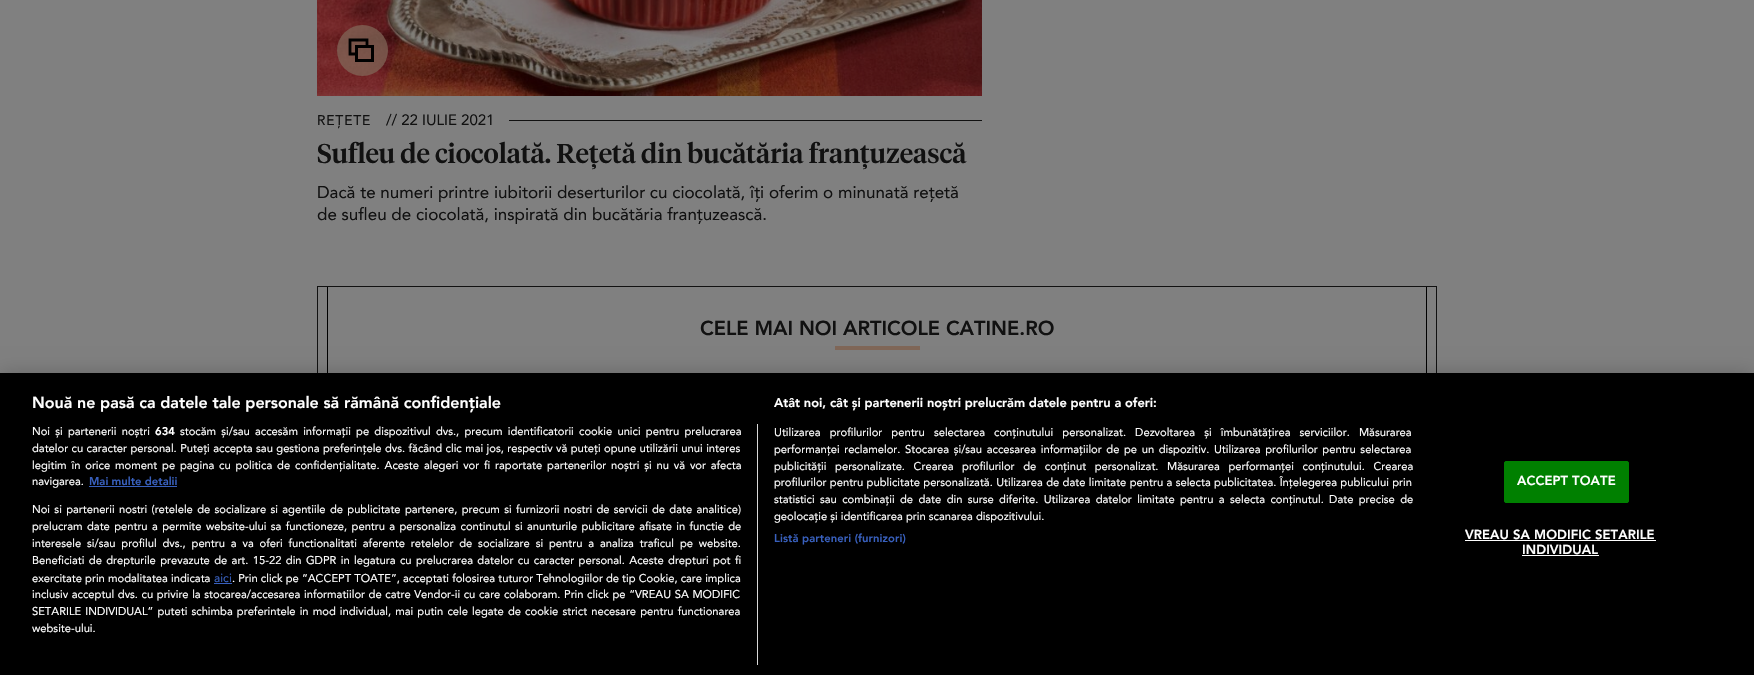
#include "include/core/SkBlurTypes.h"
#include "include/core/SkCanvas.h"
#include "include/core/SkData.h"
#include "include/core/SkFont.h"
#include "include/core/SkFontMgr.h"
#include "include/core/SkImage.h"
#include "include/core/SkMaskFilter.h"
#include "include/core/SkPaint.h"
#include "include/core/SkPathBuilder.h"
#include "include/core/SkTextBlob.h"
#include "include/effects/SkDashPathEffect.h"
#include "include/effects/SkGradientShader.h"
#include "include/utils/SkParsePath.h"

extern sk_sp<SkFontMgr> fontMgr;

void draw(SkCanvas* canvas) {
    SkPaint p;
    p.setAntiAlias(true);
    auto font = [&](const char* family, int weight, float size, bool italic = false) {
        SkFontStyle style(weight, SkFontStyle::kNormal_Width,
            italic ? SkFontStyle::kItalic_Slant : SkFontStyle::kUpright_Slant);
        SkFont result(fontMgr->matchFamilyStyle(family, style), size);
        result.setSubpixel(true);
        return result;
    };
    auto drawTracked = [&](const char* s, float x, float y, const SkFont& font, const SkPaint& ink, float letter, float word) {
        std::vector<SkGlyphID> glyphs(font.countText(s, strlen(s), SkTextEncoding::kUTF8));
        std::vector<float> xs(glyphs.size());
        font.textToGlyphs(s, strlen(s), SkTextEncoding::kUTF8, glyphs);
        font.getXPos(glyphs, xs, x);
        float extra = 0;
        for (size_t i = 0; i < glyphs.size(); i++) {
            xs[i] += extra;
            extra += letter + word * (glyphs[i] == font.unicharToGlyph(' '));
        }
        canvas->drawTextBlob(SkTextBlob::MakeFromPosHGlyphs(glyphs, xs, y, font), 0, 0, ink);
    };
    auto drawPhoto = [&](const char* path, float l, float t, float r, float b) {
        auto image = SkImages::DeferredFromEncodedData(SkData::MakeFromFileName(path));
        canvas->drawImageRect(image, SkRect::MakeLTRB(l, t, r, b), SkSamplingOptions());
    };
    canvas->clear(0xFF808080);
    drawPhoto("media/1.png", 317, 0, 982, 96);
    p.setColor(0xBF806657);
    canvas->drawCircle(362.5f, 50.5f, 25.5f, p);
    p.setStyle(SkPaint::kStroke_Style);
    p.setStrokeWidth(3);
    p.setColor(0xFF000000);
    canvas->drawRect(SkRect::MakeLTRB(356.5f, 46.5f, 372.5f, 60.5f), p);
    p.setStrokeWidth(2.8f);
    canvas->drawPath(SkPathBuilder().moveTo(356, 54).lineTo(350, 54).lineTo(350, 40).lineTo(367, 40).lineTo(367, 45).detach(), p);
    auto font1 = font("Avenir", 400, 14);
    p.setStyle(SkPaint::kFill_Style);
    p.setColor(0xFF111111);
    drawTracked("REȚETE", 317, 125, font1, p, 0.75f, 0);
    auto font2 = font("Avenir", 400, 15);
    canvas->drawString("// 22 IULIE 2021", 386, 125, font2, p);
    canvas->drawRect(SkRect::MakeLTRB(509, 120, 982, 121), p);
    auto font3 = font("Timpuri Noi", 500, 27);
    canvas->drawString("Sufleu de ciocolată. Rețetă din bucătăria franțuzească", 317, 163, font3, p);
    auto font4 = font("Avenir", 400, 17);
    canvas->drawString("Dacă te numeri printre iubitorii deserturilor cu ciocolată, îți oferim o minunată rețetă", 317, 198, font4, p);
    canvas->drawString("de sufleu de ciocolată, inspirată din bucătăria franțuzească.", 317, 220, font4, p);
    p.setStyle(SkPaint::kStroke_Style);
    p.setStrokeWidth(1);
    canvas->drawRect(SkRect::MakeLTRB(317.5f, 286.5f, 1436.5f, 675.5f), p);
    p.setStyle(SkPaint::kFill_Style);
    p.setColor(0xFF000000);
    canvas->drawRect(SkRect::MakeLTRB(327, 287, 328, 373), p);
    auto font5 = font("Avenir", 900, 20);
    p.setColor(0xFF111111);
    canvas->drawString("CELE MAI NOI ARTICOLE CATINE.RO", 700, 335, font5, p);
    p.setColor(0xFF806657);
    canvas->drawRect(SkRect::MakeLTRB(835, 346, 920, 350), p);
    p.setColor(0xFF000000);
    canvas->drawRect(SkRect::MakeLTRB(1426, 287, 1427, 373), p);
    p.setColor(0x33000000);
    p.setMaskFilter(SkMaskFilter::MakeBlur(kNormal_SkBlurStyle, 9));
    canvas->drawRect(SkRect::MakeLTRB(0, 373, 1754, 675), p);
    p.setMaskFilter(nullptr);
    p.setColor(0xFF000000);
    canvas->drawRect(SkRect::MakeLTRB(0, 373, 1754, 675), p);
    auto font6 = font("Avenir", 900, 16);
    p.setColor(0xFFFFFFFF);
    canvas->drawString("Nouă ne pasă ca datele tale personale să rămână confidențiale", 32, 408, font6, p);
    auto font7 = font("Avenir", 900, 12.8f);
    canvas->drawString("Atât noi, cât și partenerii noștri prelucrăm datele pentru a oferi:", 774, 407, font7, p);
    auto font8 = font("Avenir", 400, 11.2f);
    drawTracked("Utilizarea profilurilor pentru selectarea conținutului personalizat. Dezvoltarea și îmbunătățirea serviciilor. Măsurarea", 774, 436, font8, p, 0, 6);
    drawTracked("performanței reclamelor. Stocarea și/sau accesarea informațiilor de pe un dispozitiv. Utilizarea profilurilor pentru selectarea", 774, 453, font8, p, 0, 1.5f);
    drawTracked("publicității personalizate. Crearea profilurilor de conținut personalizat. Măsurarea performanței conținutului. Crearea", 774, 470, font8, p, 0, 5.5f);
    drawTracked("profilurilor pentru publicitate personalizată. Utilizarea de date limitate pentru a selecta publicitatea. Înțelegerea publicului prin", 774, 486, font8, p, 0, 0.25f);
    drawTracked("statistici sau combinații de date din surse diferite. Utilizarea datelor limitate pentru a selecta conținutul. Date precise de", 774, 503, font8, p, 0, 2.25f);
    canvas->drawString("geolocație și identificarea prin scanarea dispozitivului.", 774, 520, font8, p);
    auto font9 = font("Avenir", 900, 11.2f);
    p.setColor(0xFF3860BE);
    drawTracked("Listă parteneri (furnizori)", 774, 542, font9, p, 0.1f, 0);
    p.setColor(0xFFD8D8D8);
    canvas->drawRect(SkRect::MakeLTRB(757, 424, 758, 665), p);
    p.setColor(0xFFFFFFFF);
    drawTracked("Noi și partenerii noștri", 32, 435, font8, p, 0, 2.1f);
    canvas->drawString("634", 155, 435, font9, p);
    drawTracked("stocăm și/sau accesăm informații pe dispozitivul dvs., precum identificatorii cookie unici pentru prelucrarea", 180, 435, font8, p, 0, 2.1f);
    drawTracked("datelor cu caracter personal. Puteți accepta sau gestiona preferințele dvs. făcând clic mai jos, respectiv vă puteți opune utilizării unui interes", 32, 452, font8, p, 0, 0.3f);
    drawTracked("legitim în orice moment pe pagina cu politica de confidențialitate. Aceste alegeri vor fi raportate partenerilor noștri și nu vă vor afecta", 32, 469, font8, p, 0, 1.75f);
    canvas->drawString("navigarea.", 32, 485, font8, p);
    p.setColor(0xFF3860BE);
    canvas->drawString("Mai multe detalii", 89, 485, font9, p);
    canvas->drawRect(SkRect::MakeLTRB(89, 486, 177, 487), p);
    p.setColor(0xFFFFFFFF);
    drawTracked("Noi si partenerii nostri (retelele de socializare si agentiile de publicitate partenere, precum si furnizorii nostri de servicii de date analitice)", 32, 513, font8, p, 0, 1.2f);
    drawTracked("prelucram date pentru a permite website-ului sa functioneze, pentru a personaliza continutul si anunturile publicitare afisate in functie de", 32, 530, font8, p, 0, 1.25f);
    drawTracked("interesele si/sau profilul dvs., pentru a va oferi functionalitati aferente retelelor de socializare si pentru a analiza traficul pe website.", 32, 547, font8, p, 0, 2.75f);
    drawTracked("Beneficiati de drepturile prevazute de art. 15-22 din GDPR in legatura cu prelucrarea datelor cu caracter personal. Aceste drepturi pot fi", 32, 564, font8, p, 0, 1.25f);
    canvas->drawString("exercitate prin modalitatea indicata", 32, 582, font8, p);
    auto font10 = font("Avenir", 400, 12);
    p.setColor(0xFF3860BE);
    canvas->drawString("aici", 214, 582, font10, p);
    canvas->drawRect(SkRect::MakeLTRB(214, 583, 232, 584), p);
    p.setColor(0xFFFFFFFF);
    canvas->drawString(". Prin click pe “ACCEPT TOATE”, acceptati folosirea tuturor Tehnologiilor de tip Cookie, care implica", 232, 582, font8, p);
    drawTracked("inclusiv acceptul dvs. cu privire la stocarea/accesarea informatiilor de catre Vendor-ii cu care colaboram. Prin click pe “VREAU SA MODIFIC", 32, 598, font8, p, 0, 0.5f);
    drawTracked("SETARILE INDIVIDUAL” puteti schimba preferintele in mod individual, mai putin cele legate de cookie strict necesare pentru functionarea", 32, 615, font8, p, 0, 1);
    canvas->drawString("website-ului.", 32, 632, font8, p);
    p.setColor(0xFF008000);
    canvas->drawRoundRect(SkRect::MakeLTRB(1504.5f, 461.5f, 1628.5f, 502.5f), 1.5f, 1.5f, p);
    p.setStyle(SkPaint::kStroke_Style);
    canvas->drawRoundRect(SkRect::MakeLTRB(1504.5f, 461.5f, 1628.5f, 502.5f), 1.5f, 1.5f, p);
    auto font11 = font("Avenir", 900, 13);
    p.setStyle(SkPaint::kFill_Style);
    p.setColor(0xFFFFFFFF);
    drawTracked("ACCEPT TOATE", 1517, 485, font11, p, 0.1f, 0);
    drawTracked("VREAU SA MODIFIC SETARILE", 1465, 539, font11, p, 0.1f, 0);
    canvas->drawRect(SkRect::MakeLTRB(1465, 540, 1656, 541), p);
    drawTracked("INDIVIDUAL", 1522, 554, font11, p, 0.1f, 0);
    canvas->drawRect(SkRect::MakeLTRB(1522, 555, 1599, 556), p);
}
